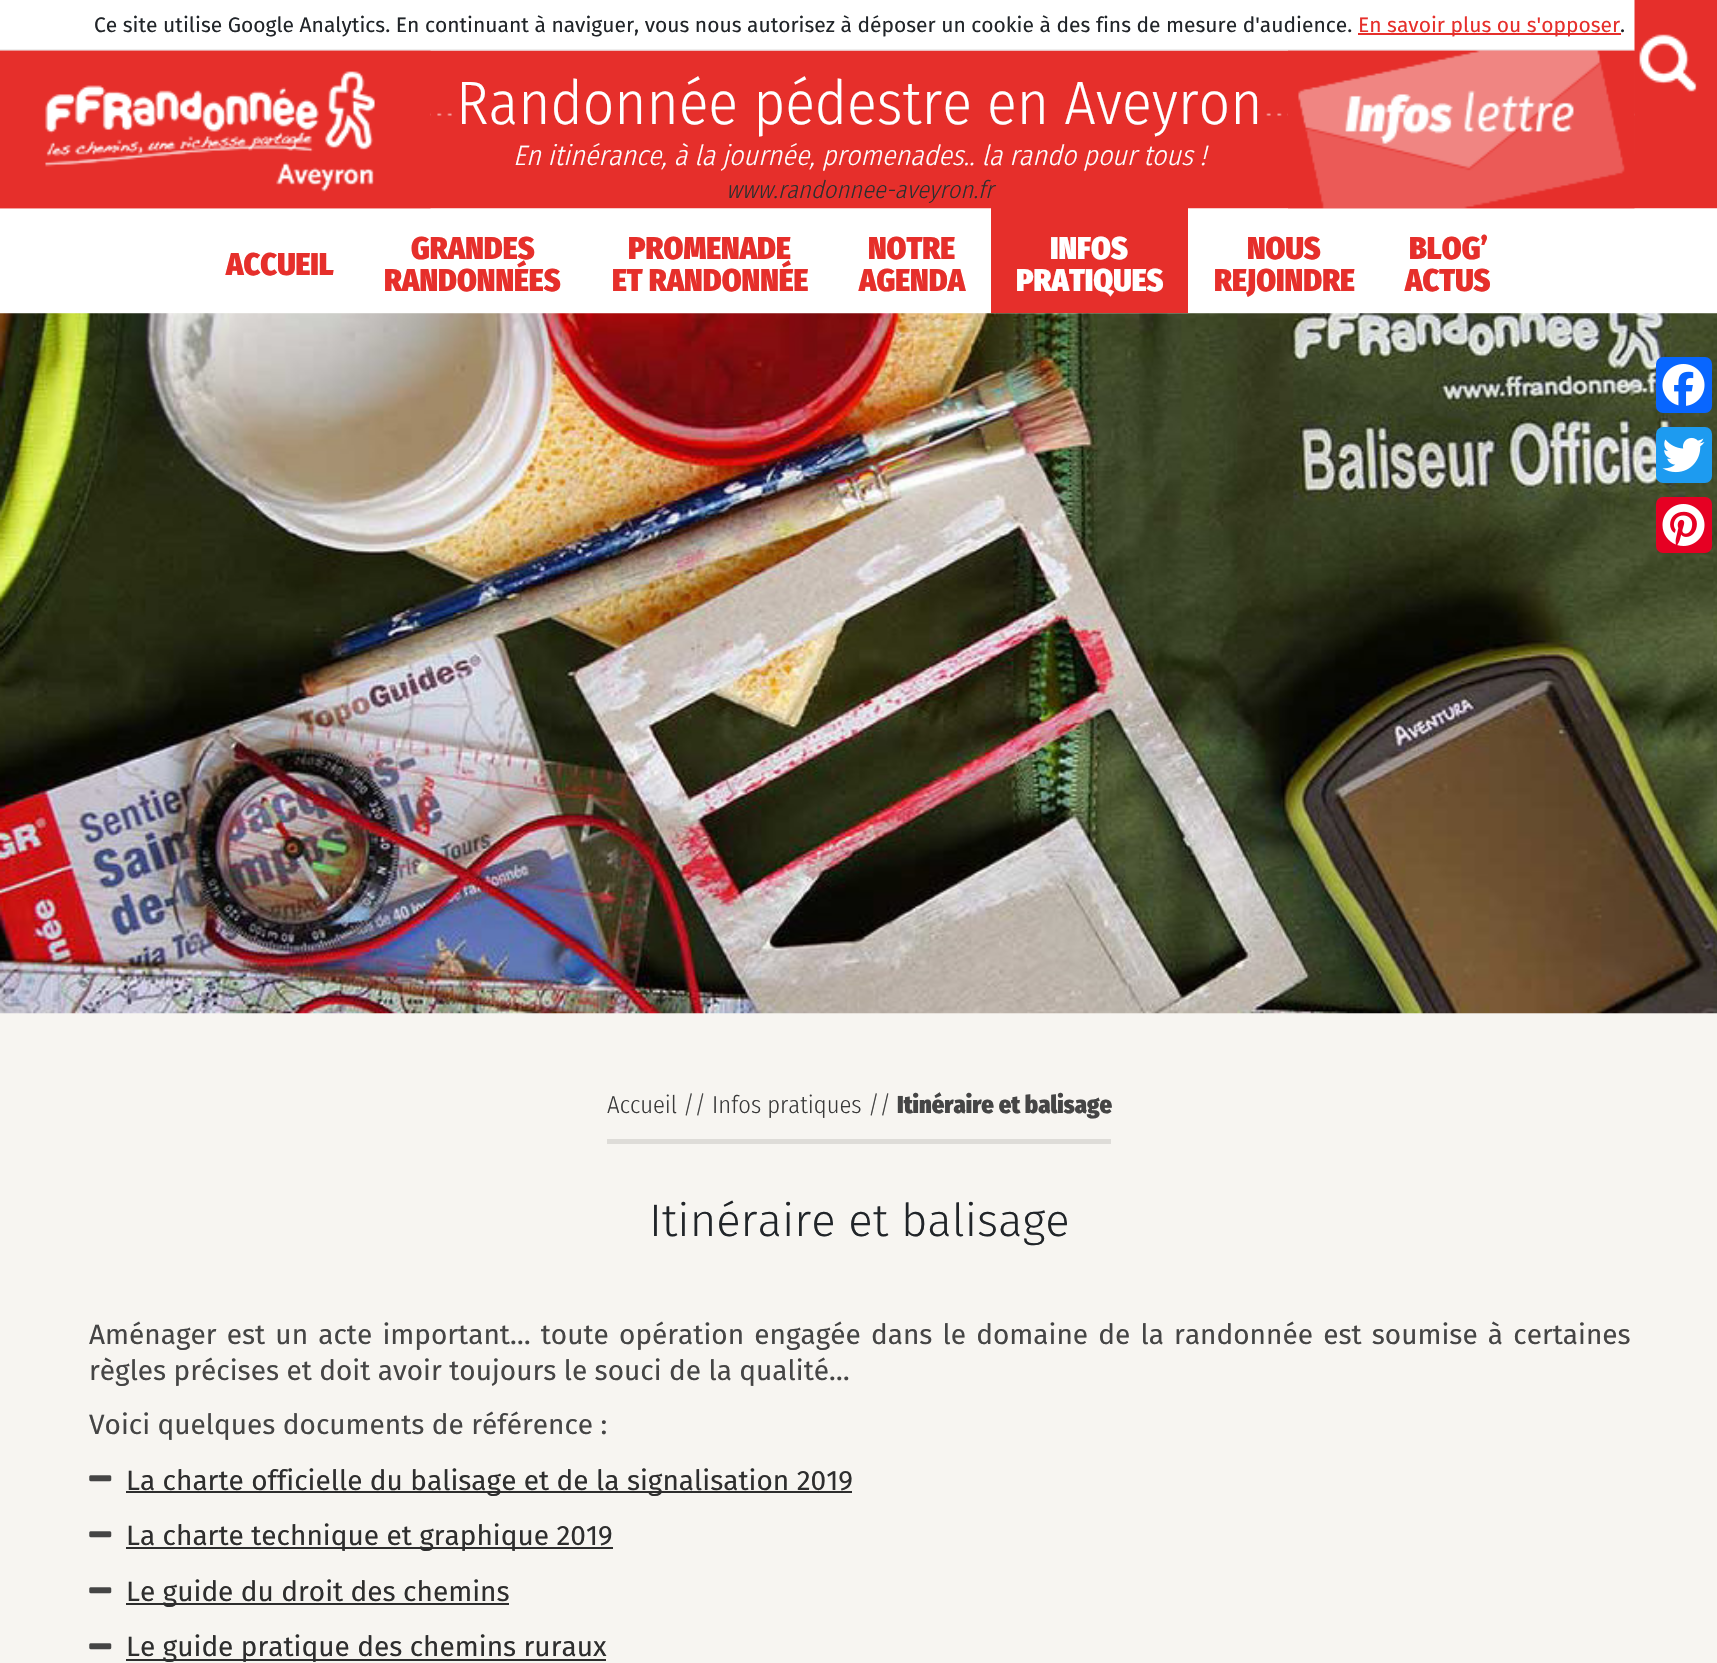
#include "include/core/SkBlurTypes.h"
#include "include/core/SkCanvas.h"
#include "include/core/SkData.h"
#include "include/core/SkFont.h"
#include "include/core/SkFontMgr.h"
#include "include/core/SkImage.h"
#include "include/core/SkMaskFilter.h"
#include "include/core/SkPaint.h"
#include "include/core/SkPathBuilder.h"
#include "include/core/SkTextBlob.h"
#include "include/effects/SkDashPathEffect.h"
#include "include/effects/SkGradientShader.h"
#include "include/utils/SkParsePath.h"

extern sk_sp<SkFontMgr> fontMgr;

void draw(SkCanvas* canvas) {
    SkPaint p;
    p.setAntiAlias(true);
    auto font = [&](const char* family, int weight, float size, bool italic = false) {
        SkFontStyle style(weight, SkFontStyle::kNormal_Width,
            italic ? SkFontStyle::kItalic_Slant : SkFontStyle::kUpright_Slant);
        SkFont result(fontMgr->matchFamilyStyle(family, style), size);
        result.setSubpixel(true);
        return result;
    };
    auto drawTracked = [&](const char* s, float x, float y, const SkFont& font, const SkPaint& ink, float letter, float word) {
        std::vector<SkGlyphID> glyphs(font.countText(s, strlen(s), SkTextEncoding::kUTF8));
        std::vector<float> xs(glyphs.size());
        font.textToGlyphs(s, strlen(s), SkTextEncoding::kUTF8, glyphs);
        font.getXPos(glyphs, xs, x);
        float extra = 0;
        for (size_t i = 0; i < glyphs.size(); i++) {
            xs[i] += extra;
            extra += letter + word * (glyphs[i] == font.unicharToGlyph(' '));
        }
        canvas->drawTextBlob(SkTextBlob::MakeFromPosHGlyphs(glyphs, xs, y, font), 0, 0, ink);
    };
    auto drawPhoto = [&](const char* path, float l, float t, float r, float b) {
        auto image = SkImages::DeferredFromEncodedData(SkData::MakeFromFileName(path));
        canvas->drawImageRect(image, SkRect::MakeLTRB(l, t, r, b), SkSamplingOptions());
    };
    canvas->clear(0xFFFFFFFF);
    p.setColor(0xFFEEEEEE);
    canvas->drawRect(SkRect::MakeLTRB(0, 49, 1635, 51), p);
    auto font1 = font("Fira Sans", 400, 21);
    p.setColor(0xFF212529);
    canvas->drawString("Ce site utilise Google Analytics. En continuant à naviguer, vous nous autorisez à déposer un cookie à des fins de mesure d'audience.", 94, 32, font1, p);
    p.setColor(0xFFE62F2B);
    canvas->drawRect(SkRect::MakeLTRB(1358, 33, 1621, 35), p);
    canvas->drawString("En savoir plus ou s'opposer", 1358, 32, font1, p);
    p.setColor(0xFF212529);
    canvas->drawString(".", 1620, 32, font1, p);
    drawPhoto("media/1.png", 0, 50, 1717, 209);
    drawPhoto("media/2.png", 0, 50, 431, 209);
    p.setColor(0xFFE62F2B);
    canvas->drawRect(SkRect::MakeLTRB(458, 113, 1261, 116), p);
    auto font2 = font("Fira Sans Condensed", 300, 61.25f);
    p.setColor(0xFFFFFFFF);
    canvas->drawString("Randonnée pédestre en Aveyron", 456, 124, font2, p);
    auto font3 = font("Fira Sans Condensed", 300, 28, true);
    canvas->drawString("En itinérance, à la journée, promenades.. la rando pour tous !", 513, 165, font3, p);
    auto font4 = font("Fira Sans Condensed", 300, 24.5f, true);
    p.setColor(0xFF2E2E2E);
    canvas->drawString("www.randonnee-aveyron.fr", 726, 198, font4, p);
    drawPhoto("media/3.png", 1288, 50, 1635, 209);
    drawPhoto("media/4.png", 1634, 0, 1717, 154);
    auto font5 = font("Fira Sans Condensed", 900, 31.5f);
    p.setColor(0xFFE62F2B);
    {
        const struct { const char* s; float x, y; } items[] = {
            {"ACCUEIL", 226, 275},
            {"GRANDES", 411, 259},
            {"RANDONNÉES", 384, 291},
            {"PROMENADE", 628, 259},
            {"ET RANDONNÉE", 612, 291},
            {"NOTRE", 868, 259},
            {"AGENDA", 859, 291},
        };
        for (auto [s, x, y] : items) {
            canvas->drawString(s, x, y, font5, p);
        }
    }
    canvas->drawRect(SkRect::MakeLTRB(991, 208, 1188, 313), p);
    p.setColor(0xFFFFFFFF);
    canvas->drawString("INFOS", 1050, 259, font5, p);
    canvas->drawString("PRATIQUES", 1016, 291, font5, p);
    p.setColor(0xFFE62F2B);
    {
        const struct { const char* s; float x, y; } items[] = {
            {"NOUS", 1247, 259},
            {"REJOINDRE", 1214, 291},
            {"BLOG’", 1409, 259},
            {"ACTUS", 1405, 291},
        };
        for (auto [s, x, y] : items) {
            canvas->drawString(s, x, y, font5, p);
        }
    }
    p.setColor(0xFFF7F5F1);
    canvas->drawRect(SkRect::MakeLTRB(0, 313, 1717, 1663), p);
    drawPhoto("media/5.png", 0, 313, 1717, 1014);
    p.setColor(0xFFDEDCD8);
    canvas->drawRect(SkRect::MakeLTRB(607, 1139, 1111, 1144), p);
    auto font6 = font("Fira Sans Condensed", 300, 24.5f);
    p.setColor(0xFF3A3A3A);
    canvas->drawString("Accueil", 607, 1113, font6, p);
    p.setColor(0xFF454545);
    canvas->drawString("//", 683, 1113, font6, p);
    p.setColor(0xFF3A3A3A);
    canvas->drawString("Infos pratiques", 712, 1113, font6, p);
    p.setColor(0xFF454545);
    canvas->drawString("//", 868, 1113, font6, p);
    auto font7 = font("Fira Sans Condensed", 900, 24.5f);
    canvas->drawString("Itinéraire et balisage", 897, 1113, font7, p);
    auto font8 = font("Fira Sans", 300, 45.5f);
    p.setColor(0xFF212529);
    canvas->drawString("Itinéraire et balisage", 649, 1236, font8, p);
    auto font9 = font("Fira Sans", 400, 28);
    p.setColor(0xFF454545);
    drawTracked("Aménager est un acte important… toute opération engagée dans le domaine de la randonnée est soumise à certaines", 89, 1344, font9, p, 0, 2.75f);
    canvas->drawString("règles précises et doit avoir toujours le souci de la qualité…", 89, 1380, font9, p);
    canvas->drawString("Voici quelques documents de référence :", 89, 1434, font9, p);
    drawPhoto("media/6.png", 89, 1475, 112, 1482);
    p.setColor(0xFF2E2E2E);
    canvas->drawRect(SkRect::MakeLTRB(126, 1491, 852, 1493), p);
    canvas->drawString("La charte officielle du balisage et de la signalisation 2019", 126, 1490, font9, p);
    drawPhoto("media/6.png", 89, 1531, 112, 1538);
    canvas->drawRect(SkRect::MakeLTRB(126, 1547, 613, 1549), p);
    canvas->drawString("La charte technique et graphique 2019", 126, 1545, font9, p);
    drawPhoto("media/6.png", 89, 1587, 112, 1594);
    canvas->drawRect(SkRect::MakeLTRB(126, 1603, 509, 1605), p);
    canvas->drawString("Le guide du droit des chemins", 126, 1601, font9, p);
    drawPhoto("media/6.png", 89, 1643, 112, 1650);
    canvas->drawRect(SkRect::MakeLTRB(126, 1659, 606, 1661), p);
    canvas->drawString("Le guide pratique des chemins ruraux", 126, 1656, font9, p);
    p.setColor(0xFF0866FF);
    canvas->drawRoundRect(SkRect::MakeLTRB(1656, 357, 1712, 413), 7, 7, p);
    drawPhoto("media/7.png", 1662, 364, 1705, 406);
    p.setColor(0xFF1D9BF0);
    canvas->drawRoundRect(SkRect::MakeLTRB(1656, 427, 1712, 483), 7, 7, p);
    drawPhoto("media/8.png", 1662, 437, 1705, 473);
    p.setColor(0xFFE60023);
    canvas->drawRoundRect(SkRect::MakeLTRB(1656, 497, 1712, 553), 7, 7, p);
    drawPhoto("media/9.png", 1662, 504, 1705, 546);
}
